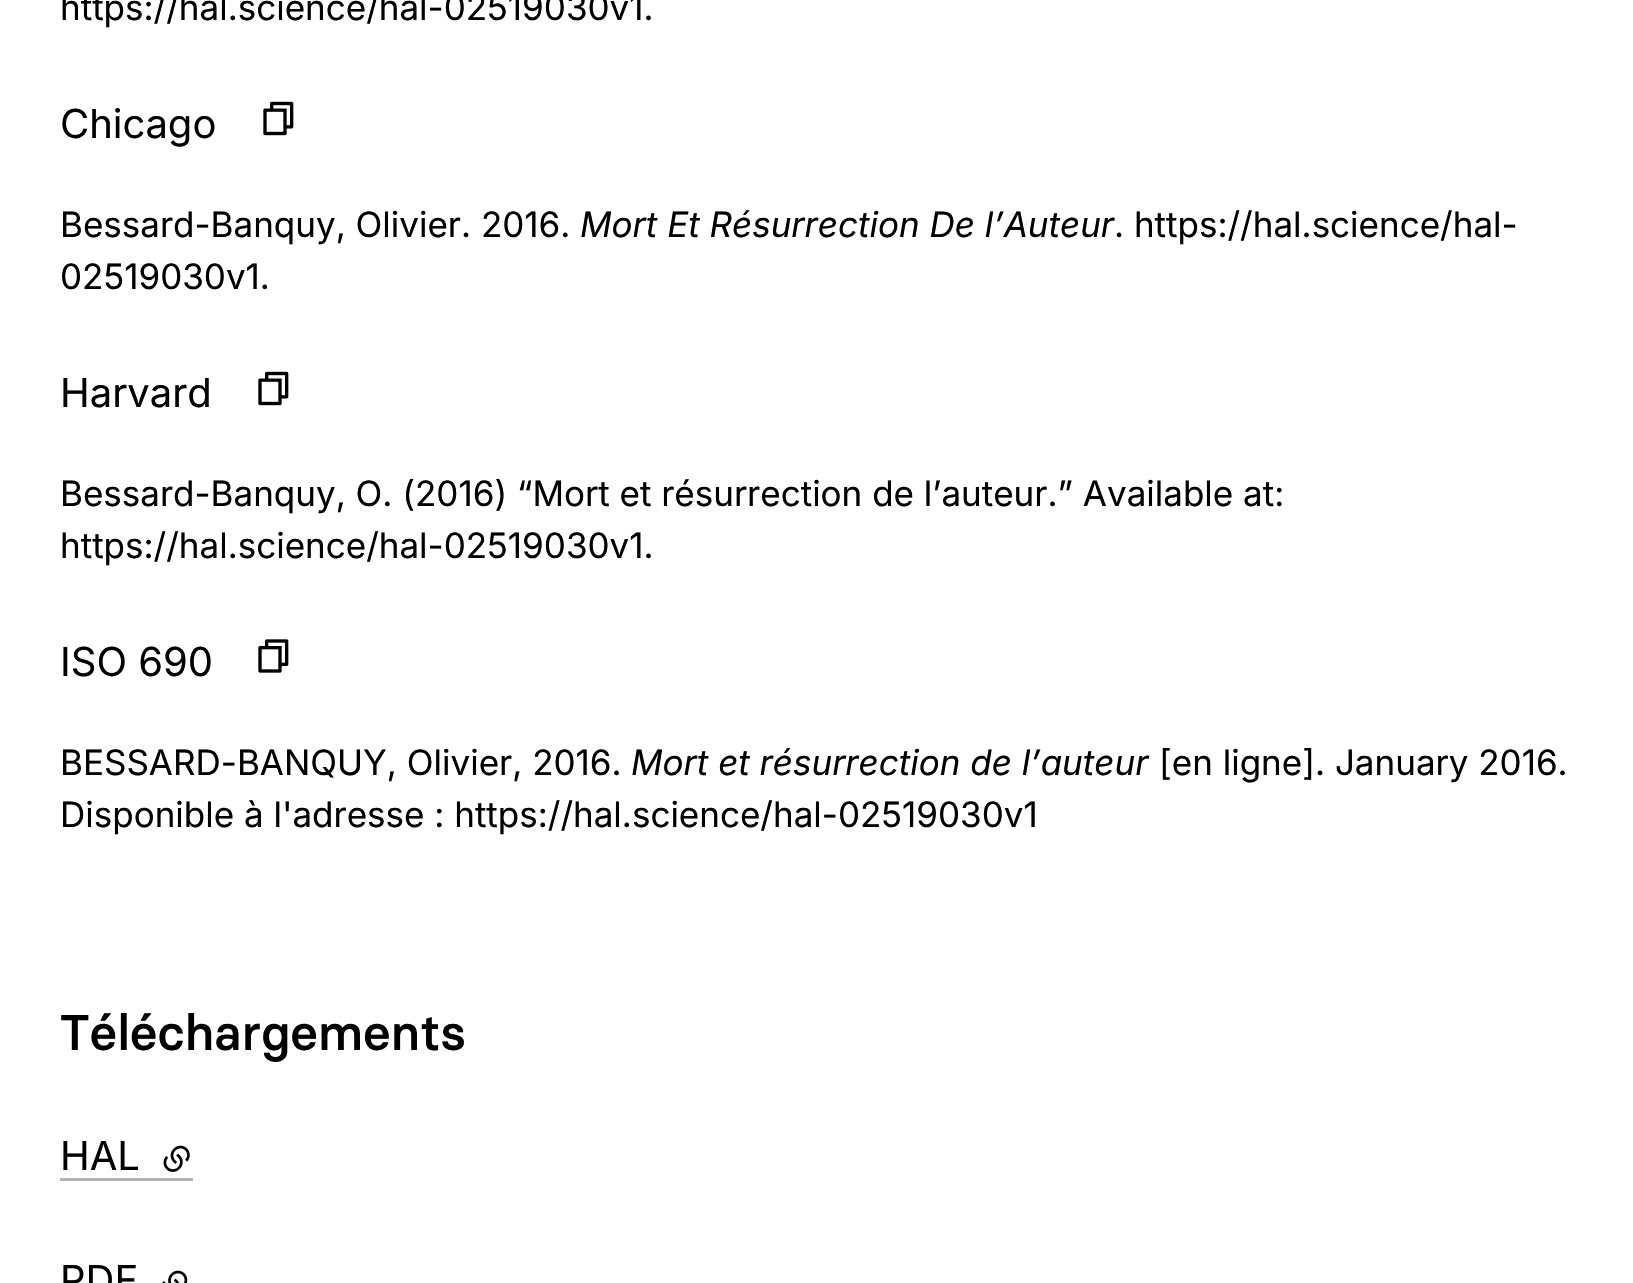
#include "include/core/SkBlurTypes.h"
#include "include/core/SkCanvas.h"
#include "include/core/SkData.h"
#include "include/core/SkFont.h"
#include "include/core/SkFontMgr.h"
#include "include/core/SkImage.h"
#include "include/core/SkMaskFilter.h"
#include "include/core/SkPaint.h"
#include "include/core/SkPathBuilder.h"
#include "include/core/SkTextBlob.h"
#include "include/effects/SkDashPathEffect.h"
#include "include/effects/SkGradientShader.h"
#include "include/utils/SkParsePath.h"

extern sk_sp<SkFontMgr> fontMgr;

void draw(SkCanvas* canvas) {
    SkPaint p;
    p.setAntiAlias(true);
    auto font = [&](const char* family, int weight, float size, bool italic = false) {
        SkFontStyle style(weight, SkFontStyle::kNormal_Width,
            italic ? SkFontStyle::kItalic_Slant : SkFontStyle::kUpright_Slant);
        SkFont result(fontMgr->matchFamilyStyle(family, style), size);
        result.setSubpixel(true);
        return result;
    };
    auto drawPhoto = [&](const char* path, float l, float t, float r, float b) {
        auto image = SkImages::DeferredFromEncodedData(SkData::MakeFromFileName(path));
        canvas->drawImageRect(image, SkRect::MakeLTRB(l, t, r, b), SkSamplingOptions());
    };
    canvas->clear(0xFFFFFFFF);
    auto font1 = font("Inter", 400, 35);
    p.setColor(0xFF000000);
    canvas->drawString("https://hal.science/hal-02519030v1.", 60, 20, font1, p);
    auto font2 = font("Inter", 400, 40);
    canvas->drawString("Chicago", 60, 138, font2, p);
    drawPhoto("media/1.png", 263, 101, 294, 136);
    canvas->drawString("Bessard-Banquy, Olivier. 2016.", 60, 237, font1, p);
    auto font3 = font("Inter", 400, 35, true);
    canvas->drawString("Mort Et Résurrection De l’Auteur", 580, 237, font3, p);
    canvas->drawString(". https://hal.science/hal-", 1114, 237, font1, p);
    canvas->drawString("02519030v1.", 60, 289, font1, p);
    canvas->drawString("Harvard", 60, 407, font2, p);
    drawPhoto("media/1.png", 258, 371, 289, 406);
    canvas->drawString("Bessard-Banquy, O. (2016) “Mort et résurrection de l’auteur.” Available at:", 60, 506, font1, p);
    canvas->drawString("https://hal.science/hal-02519030v1.", 60, 558, font1, p);
    canvas->drawString("ISO 690", 60, 676, font2, p);
    drawPhoto("media/2.png", 258, 639, 289, 673);
    canvas->drawString("BESSARD-BANQUY, Olivier, 2016.", 60, 775, font1, p);
    canvas->drawString("Mort et résurrection de l’auteur", 631, 775, font3, p);
    canvas->drawString("[en ligne]. January 2016.", 1159, 775, font1, p);
    canvas->drawString("Disponible à l'adresse : https://hal.science/hal-02519030v1", 60, 827, font1, p);
    auto font4 = font("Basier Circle", 500, 50);
    canvas->drawString("Téléchargements", 60, 1050, font4, p);
    canvas->drawString("HAL", 60, 1170, font2, p);
    p.setColor(0xFFB3B3B3);
    canvas->drawRect(SkRect::MakeLTRB(60, 1178, 193, 1181), p);
    drawPhoto("media/3.png", 163, 1145, 190, 1172);
    p.setColor(0xFF000000);
    canvas->drawString("PDF", 60, 1294, font2, p);
    drawPhoto("media/4.png", 162, 1270, 188, 1283);
}
